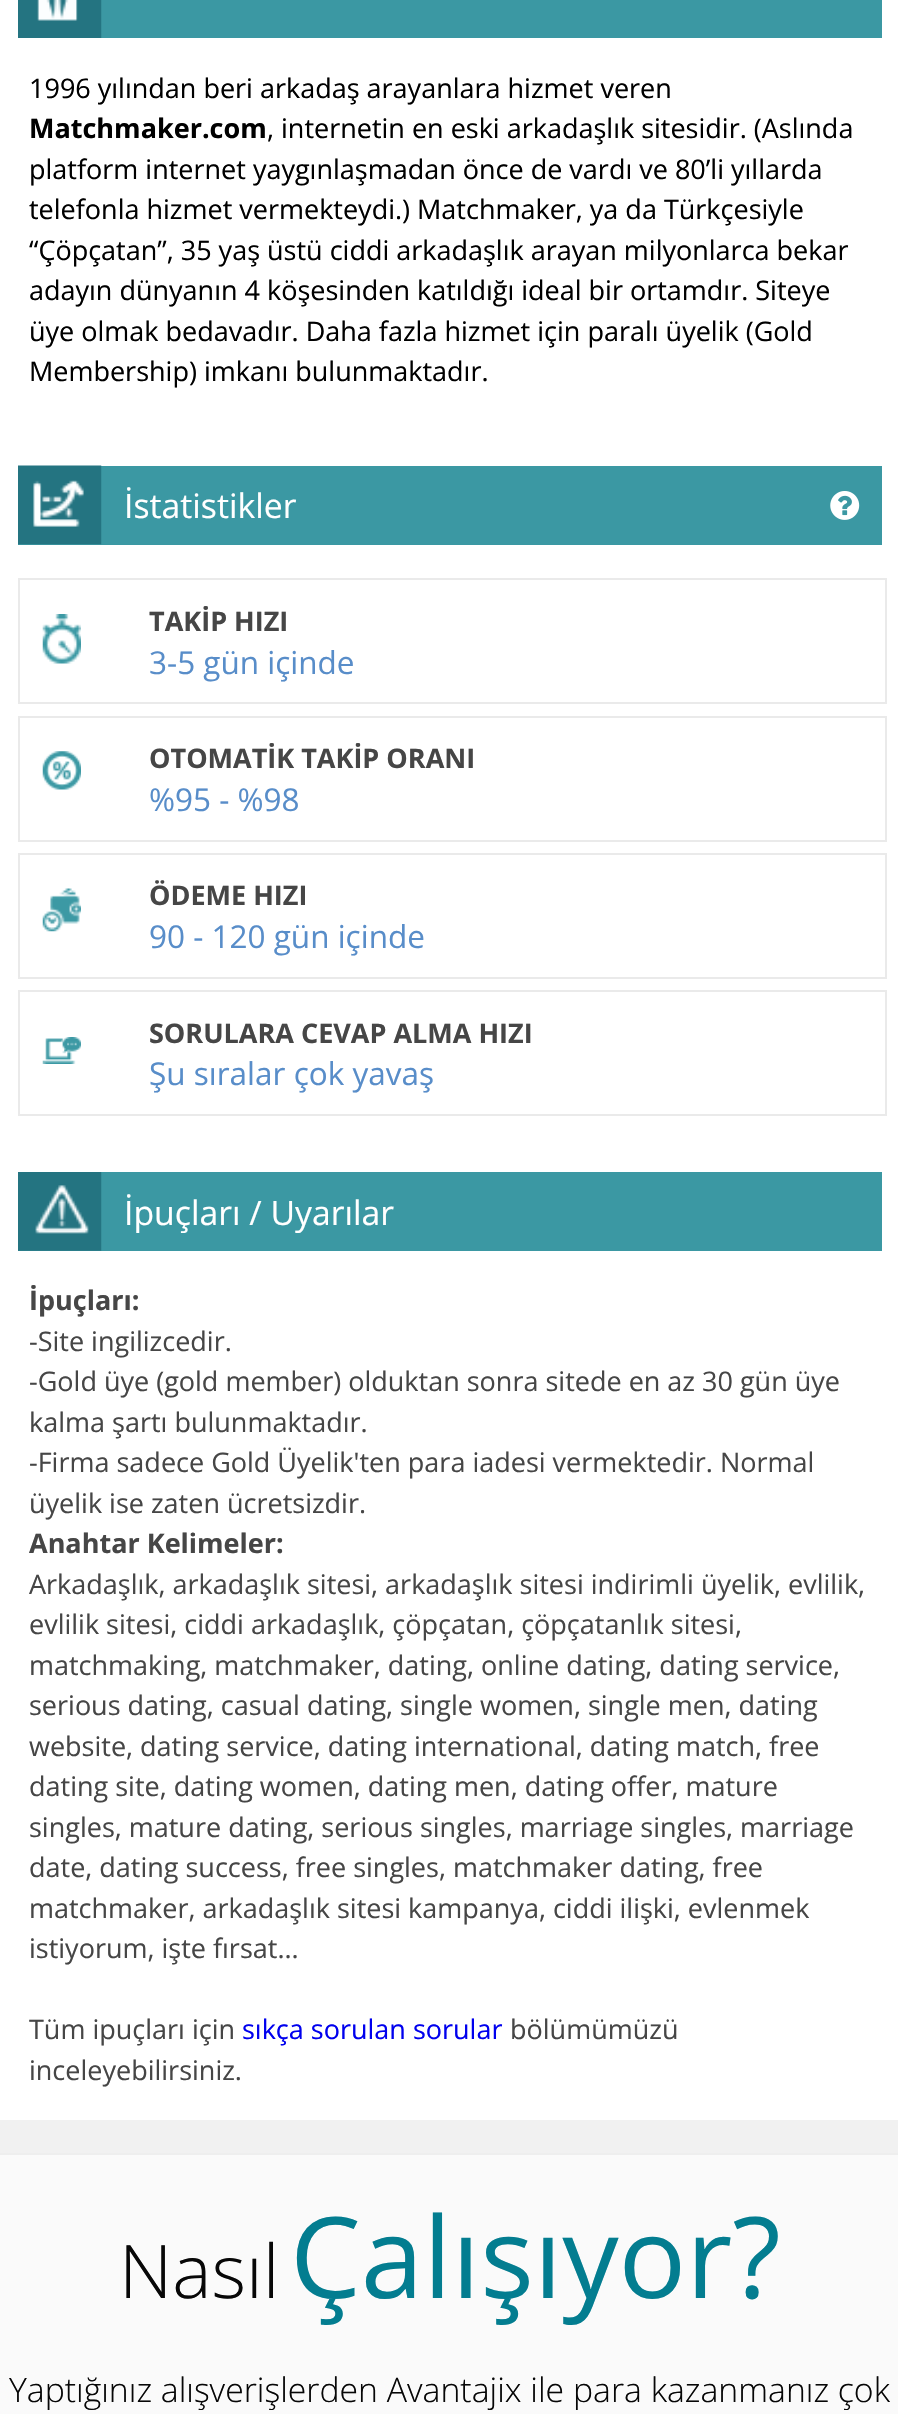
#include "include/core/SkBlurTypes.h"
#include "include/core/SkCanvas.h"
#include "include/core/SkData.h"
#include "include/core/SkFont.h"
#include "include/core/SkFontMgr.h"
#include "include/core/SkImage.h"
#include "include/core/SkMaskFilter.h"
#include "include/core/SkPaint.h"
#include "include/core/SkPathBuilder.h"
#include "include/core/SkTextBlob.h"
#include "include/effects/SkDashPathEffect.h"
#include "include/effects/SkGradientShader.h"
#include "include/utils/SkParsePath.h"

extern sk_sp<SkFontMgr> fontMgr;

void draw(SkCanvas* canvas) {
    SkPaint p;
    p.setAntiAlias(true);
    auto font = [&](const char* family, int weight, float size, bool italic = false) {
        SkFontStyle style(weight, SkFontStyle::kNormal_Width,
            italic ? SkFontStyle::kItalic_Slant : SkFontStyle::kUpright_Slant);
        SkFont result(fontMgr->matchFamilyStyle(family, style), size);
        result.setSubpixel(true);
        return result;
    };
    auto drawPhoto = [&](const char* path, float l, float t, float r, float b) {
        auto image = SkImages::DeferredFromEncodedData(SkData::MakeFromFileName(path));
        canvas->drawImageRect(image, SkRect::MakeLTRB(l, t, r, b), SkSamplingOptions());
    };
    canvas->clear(0xFFF1F1F1);
    p.setColor(0xFFFFFFFF);
    canvas->drawRect(SkRect::MakeLTRB(0, 0, 898, 2120), p);
    p.setColor(0xFF3B98A3);
    canvas->drawRect(SkRect::MakeLTRB(101, 0, 882, 38), p);
    drawPhoto("media/1.png", 18, 0, 102, 38);
    auto font1 = font("Open Sans", 400, 27);
    p.setColor(0xFF000000);
    canvas->drawString("1996 yılından beri arkadaş arayanlara hizmet veren", 29, 98, font1, p);
    auto font2 = font("Open Sans", 700, 27);
    canvas->drawString("Matchmaker.com", 29, 138, font2, p);
    {
        const struct { const char* s; float x, y; } items[] = {
            {", internetin en eski arkadaşlık sitesidir. (Aslında", 267, 138},
            {"platform internet yaygınlaşmadan önce de vardı ve 80’li yıllarda", 29, 179},
            {"telefonla hizmet vermekteydi.) Matchmaker, ya da Türkçesiyle", 29, 219},
            {"“Çöpçatan”, 35 yaş üstü ciddi arkadaşlık arayan milyonlarca bekar", 29, 260},
            {"adayın dünyanın 4 köşesinden katıldığı ideal bir ortamdır. Siteye", 29, 300},
            {"üye olmak bedavadır. Daha fazla hizmet için paralı üyelik (Gold", 29, 341},
            {"Membership) imkanı bulunmaktadır.", 29, 381},
        };
        for (auto [s, x, y] : items) {
            canvas->drawString(s, x, y, font1, p);
        }
    }
    p.setColor(0xFF3B98A3);
    canvas->drawRect(SkRect::MakeLTRB(18, 466, 882, 545), p);
    drawPhoto("media/2.png", 18, 465, 102, 545);
    auto font3 = font("Open Sans", 400, 33.75f);
    p.setColor(0xFFFFFFFF);
    canvas->drawString("İstatistikler", 124, 518, font3, p);
    drawPhoto("media/3.png", 830, 491, 860, 520);
    p.setStyle(SkPaint::kStroke_Style);
    p.setStrokeWidth(2);
    p.setColor(0xFFEAEAEA);
    canvas->drawRect(SkRect::MakeLTRB(19, 579, 886, 703), p);
    drawPhoto("media/4.png", 42, 614, 81, 664);
    p.setStyle(SkPaint::kFill_Style);
    p.setColor(0xFF464646);
    canvas->drawString("TAKİP HIZI", 149, 631, font2, p);
    auto font4 = font("Open Sans", 400, 31.5f);
    p.setColor(0xFF588DC9);
    canvas->drawString("3-5 gün içinde", 149, 674, font4, p);
    p.setStyle(SkPaint::kStroke_Style);
    p.setColor(0xFFEAEAEA);
    canvas->drawRect(SkRect::MakeLTRB(19, 717, 886, 841), p);
    drawPhoto("media/5.png", 42, 751, 81, 790);
    p.setStyle(SkPaint::kFill_Style);
    p.setColor(0xFF464646);
    canvas->drawString("OTOMATİK TAKİP ORANI", 149, 768, font2, p);
    p.setColor(0xFF588DC9);
    canvas->drawString("%95 - %98", 149, 811, font4, p);
    p.setStyle(SkPaint::kStroke_Style);
    p.setColor(0xFFEAEAEA);
    canvas->drawRect(SkRect::MakeLTRB(19, 854, 886, 978), p);
    drawPhoto("media/6.png", 42, 888, 81, 932);
    p.setStyle(SkPaint::kFill_Style);
    p.setColor(0xFF464646);
    canvas->drawString("ÖDEME HIZI", 149, 905, font2, p);
    p.setColor(0xFF588DC9);
    canvas->drawString("90 - 120 gün içinde", 149, 948, font4, p);
    p.setStyle(SkPaint::kStroke_Style);
    p.setColor(0xFFEAEAEA);
    canvas->drawRect(SkRect::MakeLTRB(19, 991, 886, 1115), p);
    drawPhoto("media/7.png", 42, 1037, 81, 1064);
    p.setStyle(SkPaint::kFill_Style);
    p.setColor(0xFF464646);
    canvas->drawString("SORULARA CEVAP ALMA HIZI", 149, 1043, font2, p);
    p.setColor(0xFF588DC9);
    canvas->drawString("Şu sıralar çok yavaş", 149, 1085, font4, p);
    p.setColor(0xFF3B98A3);
    canvas->drawRect(SkRect::MakeLTRB(18, 1172, 882, 1251), p);
    drawPhoto("media/8.png", 18, 1172, 102, 1251);
    p.setColor(0xFFFFFFFF);
    canvas->drawString("İpuçları / Uyarılar", 124, 1225, font3, p);
    p.setColor(0xFF464646);
    canvas->drawString("İpuçları:", 29, 1310, font2, p);
    {
        const struct { const char* s; float x, y; } items[] = {
            {"-Site ingilizcedir.", 29, 1351},
            {"-Gold üye (gold member) olduktan sonra sitede en az 30 gün üye", 29, 1391},
            {"kalma şartı bulunmaktadır.", 29, 1432},
            {"-Firma sadece Gold Üyelik'ten para iadesi vermektedir. Normal", 29, 1472},
            {"üyelik ise zaten ücretsizdir.", 29, 1513},
        };
        for (auto [s, x, y] : items) {
            canvas->drawString(s, x, y, font1, p);
        }
    }
    canvas->drawString("Anahtar Kelimeler:", 29, 1553, font2, p);
    {
        const struct { const char* s; float x, y; } items[] = {
            {"Arkadaşlık, arkadaşlık sitesi, arkadaşlık sitesi indirimli üyelik, evlilik,", 29, 1594},
            {"evlilik sitesi, ciddi arkadaşlık, çöpçatan, çöpçatanlık sitesi,", 29, 1634},
            {"matchmaking, matchmaker, dating, online dating, dating service,", 29, 1675},
            {"serious dating, casual dating, single women, single men, dating", 29, 1715},
            {"website, dating service, dating international, dating match, free", 29, 1756},
            {"dating site, dating women, dating men, dating offer, mature", 29, 1796},
            {"singles, mature dating, serious singles, marriage singles, marriage", 29, 1837},
            {"date, dating success, free singles, matchmaker dating, free", 29, 1877},
            {"matchmaker, arkadaşlık sitesi kampanya, ciddi ilişki, evlenmek", 29, 1918},
            {"istiyorum, işte fırsat...", 29, 1958},
            {"Tüm ipuçları için", 29, 2039},
        };
        for (auto [s, x, y] : items) {
            canvas->drawString(s, x, y, font1, p);
        }
    }
    p.setColor(0xFF0000EE);
    canvas->drawString("sıkça sorulan sorular", 242, 2039, font1, p);
    p.setColor(0xFF464646);
    canvas->drawString("bölümümüzü", 510, 2039, font1, p);
    canvas->drawString("inceleyebilirsiniz.", 29, 2080, font1, p);
    p.setColor(0xFFFAFAFA);
    canvas->drawRect(SkRect::MakeLTRB(0, 2155, 898, 2414), p);
    p.setColor(0xFFEEEEEE);
    canvas->drawRect(SkRect::MakeLTRB(0, 2153, 898, 2155), p);
    auto font5 = font("Open Sans", 300, 74);
    p.setColor(0xFF070707);
    canvas->drawString("Nasıl", 119, 2298, font5, p);
    auto font6 = font("Open Sans", 400, 112.5f);
    p.setColor(0xFF037D90);
    canvas->drawString("Çalışıyor?", 290, 2298, font6, p);
    auto font7 = font("Open Sans", 300, 33.75f);
    p.setColor(0xFF070707);
    canvas->drawString("Yaptığınız alışverişlerden Avantajix ile para kazanmanız çok", 9, 2402, font7, p);
}
